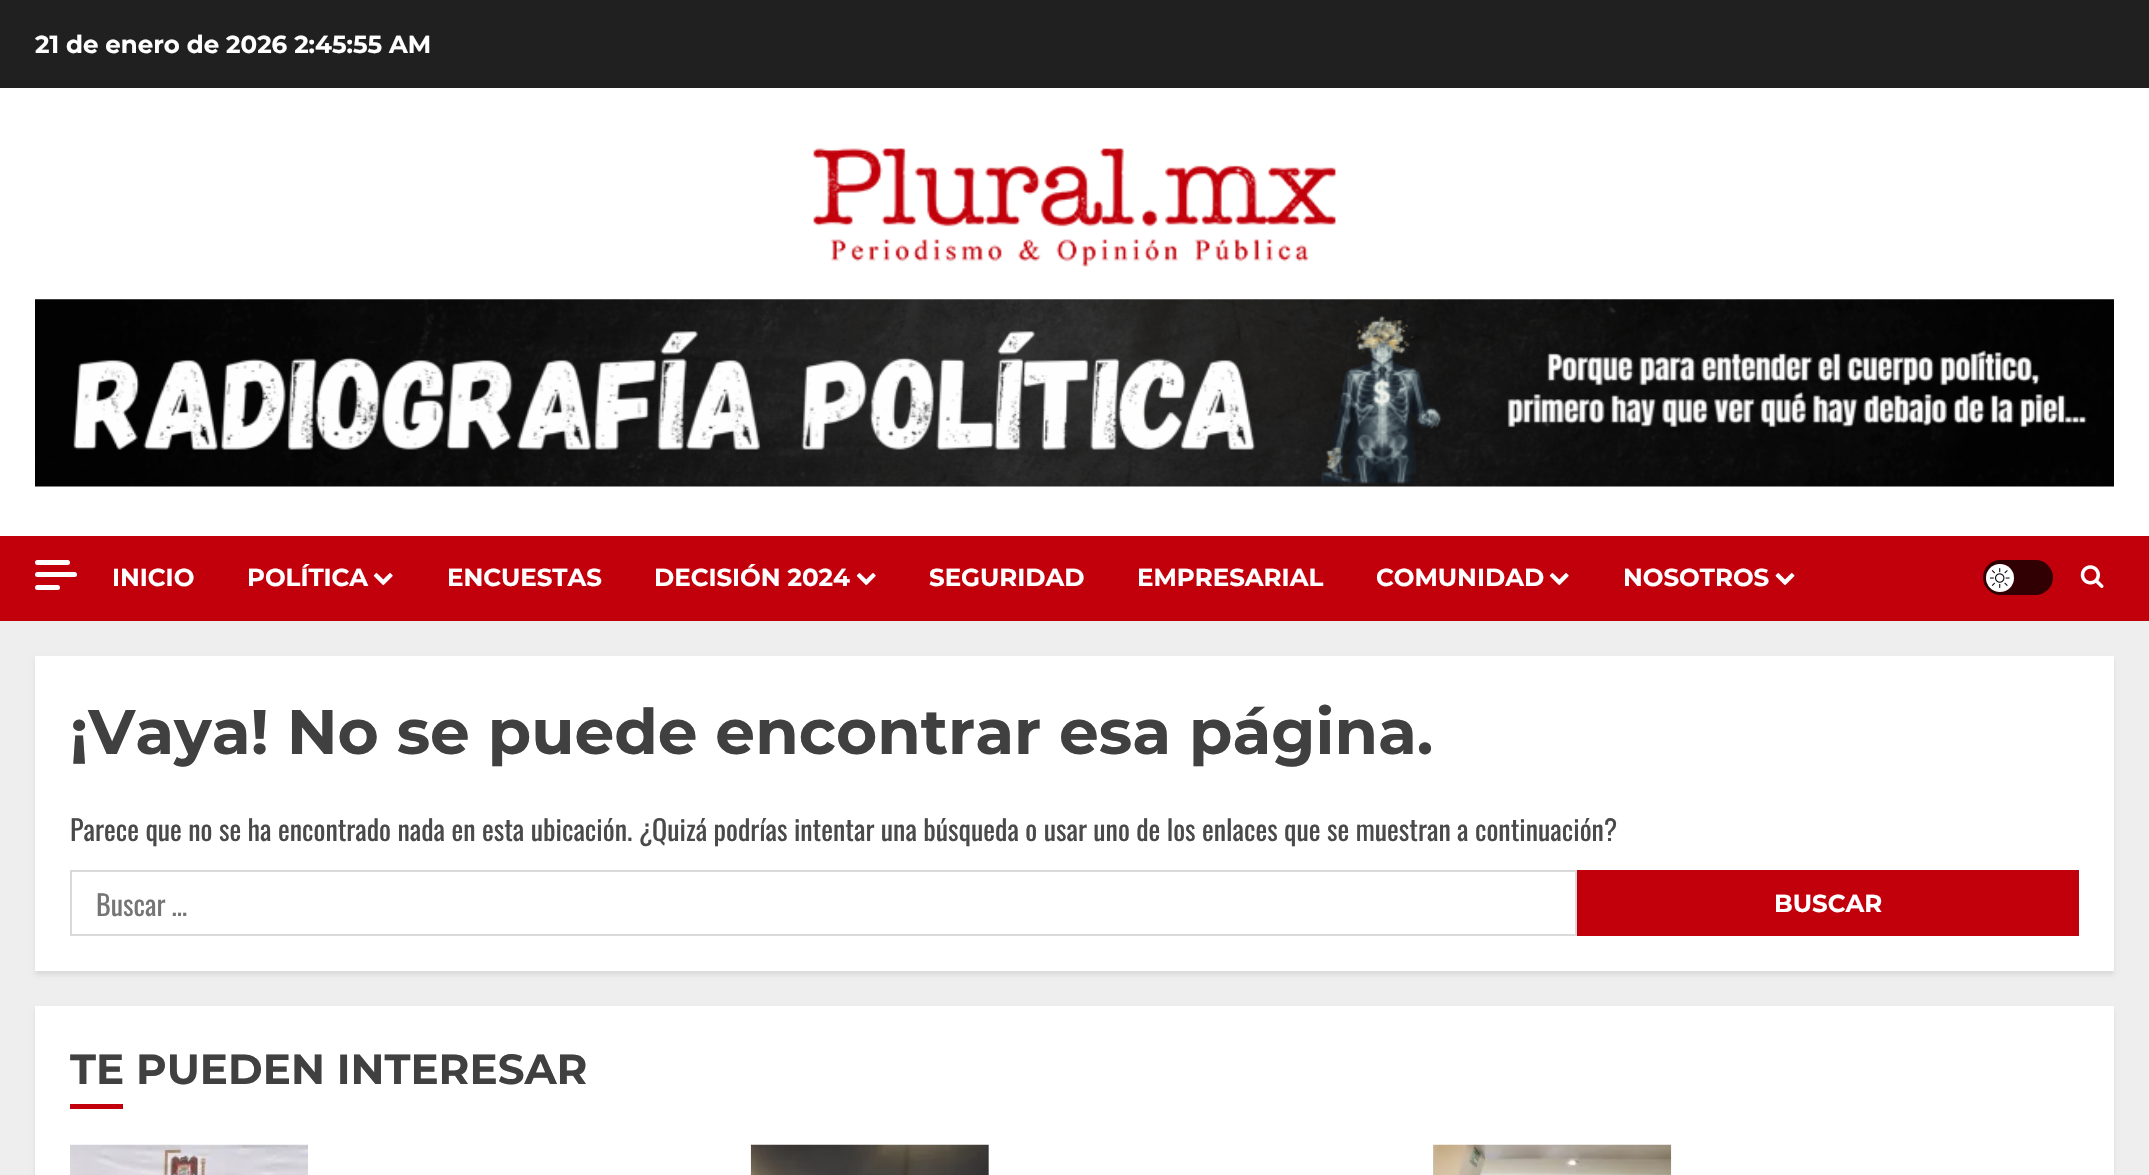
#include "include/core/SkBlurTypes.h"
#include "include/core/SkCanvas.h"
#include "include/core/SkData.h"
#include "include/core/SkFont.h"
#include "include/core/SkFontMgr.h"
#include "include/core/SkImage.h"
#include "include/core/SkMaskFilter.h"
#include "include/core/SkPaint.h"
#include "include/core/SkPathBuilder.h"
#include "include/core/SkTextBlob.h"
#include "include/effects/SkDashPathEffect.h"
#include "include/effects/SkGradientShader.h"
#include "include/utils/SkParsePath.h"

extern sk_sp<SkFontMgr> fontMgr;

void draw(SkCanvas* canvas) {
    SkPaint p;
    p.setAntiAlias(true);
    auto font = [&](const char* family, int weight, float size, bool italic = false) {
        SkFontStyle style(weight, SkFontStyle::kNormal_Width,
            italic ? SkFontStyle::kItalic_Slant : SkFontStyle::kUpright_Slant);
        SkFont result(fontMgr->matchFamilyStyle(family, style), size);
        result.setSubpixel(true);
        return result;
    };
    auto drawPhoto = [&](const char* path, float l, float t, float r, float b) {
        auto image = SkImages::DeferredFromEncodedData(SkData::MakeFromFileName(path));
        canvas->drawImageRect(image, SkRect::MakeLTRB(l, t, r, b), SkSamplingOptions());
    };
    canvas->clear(0xFFEEEEEE);
    p.setColor(0xFF202020);
    canvas->drawRect(SkRect::MakeLTRB(0, 0, 2149, 88), p);
    auto font1 = font("Montserrat", 700, 24.5f);
    p.setColor(0xFFFFFFFF);
    canvas->drawString("21 de enero de 2026 2:45:55 AM", 35, 53, font1, p);
    canvas->drawRect(SkRect::MakeLTRB(0, 88, 2149, 536), p);
    drawPhoto("media/1.png", 813, 148, 1336, 267);
    drawPhoto("media/2.png", 35, 299, 2114, 487);
    p.setColor(0xFFC2000B);
    canvas->drawRect(SkRect::MakeLTRB(0, 536, 2149, 621), p);
    p.setColor(0xFFFFFFFF);
    canvas->drawRoundRect(SkRect::MakeLTRB(35, 560, 70, 565), 2.5f, 2.5f, p);
    canvas->drawRoundRect(SkRect::MakeLTRB(35, 572, 77, 577), 2.5f, 2.5f, p);
    canvas->drawRoundRect(SkRect::MakeLTRB(35, 585, 60, 590), 2.5f, 2.5f, p);
    canvas->drawString("INICIO", 112, 586, font1, p);
    canvas->drawString("POLÍTICA", 247, 586, font1, p);
    drawPhoto("media/3.png", 373, 573, 393, 586);
    canvas->drawString("ENCUESTAS", 447, 586, font1, p);
    canvas->drawString("DECISIÓN 2024", 654, 586, font1, p);
    drawPhoto("media/3.png", 856, 573, 876, 586);
    {
        const struct { const char* s; float x, y; } items[] = {
            {"SEGURIDAD", 929, 586},
            {"EMPRESARIAL", 1137, 586},
            {"COMUNIDAD", 1376, 586},
        };
        for (auto [s, x, y] : items) {
            canvas->drawString(s, x, y, font1, p);
        }
    }
    drawPhoto("media/3.png", 1549, 573, 1569, 586);
    canvas->drawString("NOSOTROS", 1623, 586, font1, p);
    drawPhoto("media/4.png", 1775, 573, 1795, 585);
    p.setColor(0xFF310003);
    canvas->drawRoundRect(SkRect::MakeLTRB(1983, 560, 2053, 595), 17.5f, 17.5f, p);
    p.setColor(0xFFFFFFFF);
    canvas->drawCircle(2000, 578, 14, p);
    drawPhoto("media/5.png", 1990, 568, 2010, 588);
    drawPhoto("media/6.png", 2080, 565, 2104, 588);
    p.setColor(0x14000000);
    p.setMaskFilter(SkMaskFilter::MakeBlur(kNormal_SkBlurStyle, 2));
    canvas->drawRect(SkRect::MakeLTRB(35, 660, 2114, 975), p);
    p.setMaskFilter(nullptr);
    p.setColor(0xFFFFFFFF);
    canvas->drawRect(SkRect::MakeLTRB(35, 656, 2114, 971), p);
    auto font2 = font("Montserrat", 700, 63);
    p.setColor(0xFF404040);
    canvas->drawString("¡Vaya! No se puede encontrar esa página.", 70, 754, font2, p);
    auto font3 = font("Oswald", 400, 28);
    p.setColor(0xFF4A4A4A);
    canvas->drawString("Parece que no se ha encontrado nada en esta ubicación. ¿Quizá podrías intentar una búsqueda o usar uno de los enlaces que se muestran a continuación?", 70, 841, font3, p);
    p.setStyle(SkPaint::kStroke_Style);
    p.setStrokeWidth(2);
    p.setColor(0xFFD9D9D9);
    canvas->drawRect(SkRect::MakeLTRB(71, 871, 1576, 935), p);
    p.setStyle(SkPaint::kFill_Style);
    p.setColor(0xFF757575);
    canvas->drawString("Buscar …", 96, 916, font3, p);
    p.setColor(0xFFC2000B);
    canvas->drawRect(SkRect::MakeLTRB(1577, 870, 2079, 936), p);
    p.setColor(0xFFFFFFFF);
    canvas->drawString("BUSCAR", 1774, 912, font1, p);
    p.setColor(0x14000000);
    p.setMaskFilter(SkMaskFilter::MakeBlur(kNormal_SkBlurStyle, 2));
    canvas->drawRect(SkRect::MakeLTRB(35, 1010, 2114, 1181), p);
    p.setMaskFilter(nullptr);
    p.setColor(0xFFFFFFFF);
    canvas->drawRect(SkRect::MakeLTRB(35, 1006, 2114, 1175), p);
    auto font4 = font("Montserrat", 700, 42);
    p.setColor(0xFF404040);
    canvas->drawString("TE PUEDEN INTERESAR", 70, 1084, font4, p);
    p.setColor(0xFFC2000B);
    canvas->drawRect(SkRect::MakeLTRB(70, 1104, 123, 1109), p);
    drawPhoto("media/7.png", 70, 1144, 308, 1175);
    p.setColor(0xFFCCCCCC);
    canvas->drawRect(SkRect::MakeLTRB(988, 1145, 989, 1175), p);
    drawPhoto("media/8.png", 750, 1144, 989, 1175);
    canvas->drawRect(SkRect::MakeLTRB(1433, 1145, 1434, 1175), p);
    drawPhoto("media/9.png", 1433, 1144, 1672, 1175);
}
